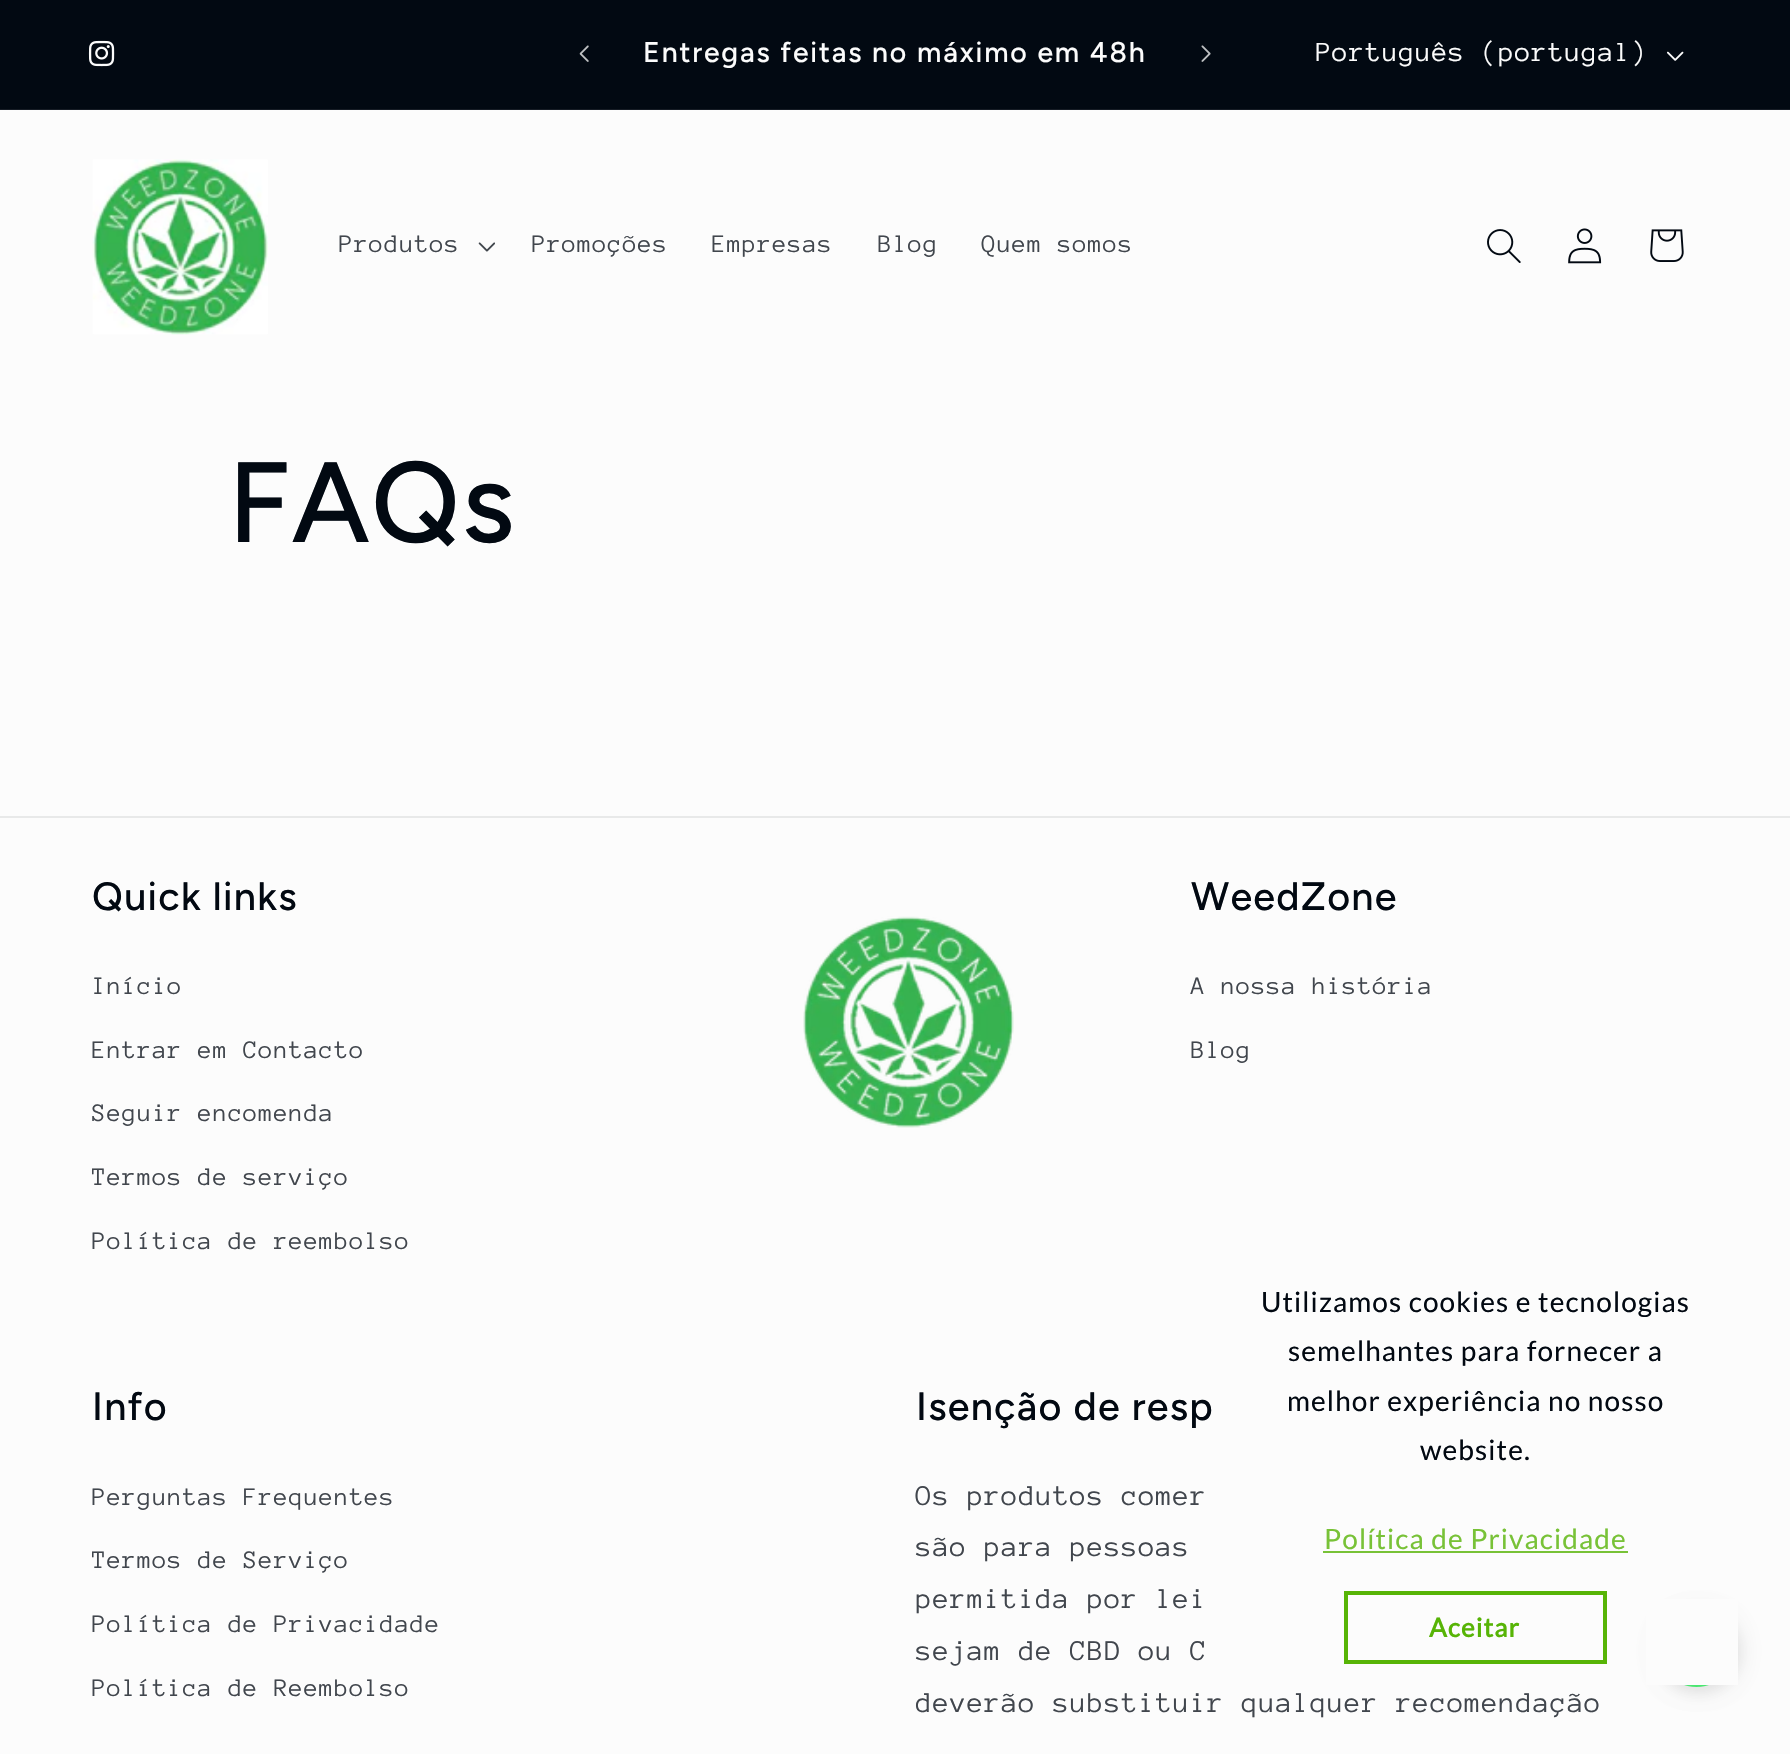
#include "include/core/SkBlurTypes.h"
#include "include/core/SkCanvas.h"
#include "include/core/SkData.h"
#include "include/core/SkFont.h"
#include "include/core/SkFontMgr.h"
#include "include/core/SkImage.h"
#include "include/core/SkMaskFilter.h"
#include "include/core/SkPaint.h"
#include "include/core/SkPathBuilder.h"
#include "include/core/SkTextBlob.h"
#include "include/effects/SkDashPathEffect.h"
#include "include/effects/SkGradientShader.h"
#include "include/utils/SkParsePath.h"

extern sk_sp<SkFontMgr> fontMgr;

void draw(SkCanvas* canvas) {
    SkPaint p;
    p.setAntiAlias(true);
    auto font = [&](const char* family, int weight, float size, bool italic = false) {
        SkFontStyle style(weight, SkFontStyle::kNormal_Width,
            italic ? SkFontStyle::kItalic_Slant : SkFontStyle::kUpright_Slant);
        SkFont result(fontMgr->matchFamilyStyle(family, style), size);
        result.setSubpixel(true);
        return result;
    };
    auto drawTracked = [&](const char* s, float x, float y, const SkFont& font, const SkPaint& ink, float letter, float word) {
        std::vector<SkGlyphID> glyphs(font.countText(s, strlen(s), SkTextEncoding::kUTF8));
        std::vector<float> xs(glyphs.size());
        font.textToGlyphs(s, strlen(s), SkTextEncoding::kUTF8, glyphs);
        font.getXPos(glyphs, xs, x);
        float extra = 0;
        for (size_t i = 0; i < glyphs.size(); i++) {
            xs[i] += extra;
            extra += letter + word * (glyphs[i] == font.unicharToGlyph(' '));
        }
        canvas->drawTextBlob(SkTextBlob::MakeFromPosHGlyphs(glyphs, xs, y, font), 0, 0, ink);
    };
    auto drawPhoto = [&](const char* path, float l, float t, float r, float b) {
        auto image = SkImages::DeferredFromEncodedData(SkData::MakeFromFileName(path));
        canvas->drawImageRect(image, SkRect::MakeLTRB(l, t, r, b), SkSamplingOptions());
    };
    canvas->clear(0xFFFCFCFC);
    p.setColor(0xFF020912);
    canvas->drawRect(SkRect::MakeLTRB(0, 0, 1790, 109), p);
    p.setColor(0xFF161C25);
    canvas->drawRect(SkRect::MakeLTRB(0, 109, 1790, 110), p);
    drawPhoto("media/1.png", 88, 40, 115, 67);
    drawPhoto("media/2.png", 579, 45, 589, 62);
    auto font1 = font("Figtree", 500, 28.4f);
    p.setColor(0xFFFCFCFC);
    drawTracked("Entregas feitas no máximo em 48h", 643, 62, font1, p, 1.85f, 0);
    drawPhoto("media/3.png", 1201, 45, 1211, 62);
    auto font2 = font("Anonymous Pro", 400, 28.4f);
    drawTracked("Português (portugal)", 1316, 61, font2, p, 1.1f, 0);
    drawPhoto("media/4.png", 1667, 51, 1684, 61);
    drawPhoto("media/5.png", 92, 159, 268, 335);
    auto font3 = font("Anonymous Pro", 400, 25.75f);
    p.setColor(0xFF41464D);
    drawTracked("Produtos", 339, 252, font3, p, 1.1f, 0);
    drawPhoto("media/6.png", 478, 242, 495, 252);
    {
        const struct { const char* s; float x, y; } items[] = {
            {"Promoções", 532, 252},
            {"Empresas", 712, 252},
            {"Blog", 878, 252},
            {"Quem somos", 982, 252},
        };
        for (auto [s, x, y] : items) {
            drawTracked(s, x, y, font3, p, 1.1f, 0);
        }
    }
    drawPhoto("media/7.png", 1487, 229, 1521, 263);
    drawPhoto("media/8.png", 1568, 228, 1602, 264);
    drawPhoto("media/9.png", 1650, 229, 1684, 262);
    auto font4 = font("Figtree", 500, 114);
    p.setColor(0xFF020912);
    drawTracked("FAQs", 228, 542, font4, p, 1.25f, 0);
    p.setColor(0xFFE8E9E9);
    canvas->drawRect(SkRect::MakeLTRB(0, 816, 1790, 818), p);
    auto font5 = font("Figtree", 500, 39.5f);
    p.setColor(0xFF020912);
    drawTracked("Quick links", 92, 910, font5, p, 1.25f, 0);
    p.setColor(0xFF41464D);
    {
        const struct { const char* s; float x, y; } items[] = {
            {"Início", 92, 994},
            {"Entrar em Contacto", 92, 1058},
            {"Seguir encomenda", 92, 1121},
            {"Termos de serviço", 92, 1185},
            {"Política de reembolso", 92, 1249},
        };
        for (auto [s, x, y] : items) {
            drawTracked(s, x, y, font3, p, 1.1f, 0);
        }
    }
    drawPhoto("media/10.png", 803, 916, 1014, 1128);
    p.setColor(0xFF020912);
    drawTracked("WeedZone", 1191, 910, font5, p, 1.25f, 0);
    p.setColor(0xFF41464D);
    drawTracked("A nossa história", 1191, 994, font3, p, 1.1f, 0);
    drawTracked("Blog", 1191, 1058, font3, p, 1.1f, 0);
    p.setColor(0xFF020912);
    drawTracked("Info", 92, 1420, font5, p, 1.25f, 0);
    p.setColor(0xFF41464D);
    {
        const struct { const char* s; float x, y; } items[] = {
            {"Perguntas Frequentes", 92, 1505},
            {"Termos de Serviço", 92, 1568},
            {"Política de Privacidade", 92, 1632},
            {"Política de Reembolso", 92, 1696},
        };
        for (auto [s, x, y] : items) {
            drawTracked(s, x, y, font3, p, 1.1f, 0);
        }
    }
    p.setColor(0xFF020912);
    drawTracked("Isenção de resp", 916, 1420, font5, p, 1.25f, 0);
    auto font6 = font("Anonymous Pro", 400, 29.4f);
    p.setColor(0xFF41464D);
    {
        const struct { const char* s; float x, y; } items[] = {
            {"Os produtos comer", 916, 1505},
            {"são para pessoas", 916, 1556},
            {"permitida por lei", 916, 1608},
            {"sejam de CBD ou C", 916, 1660},
            {"deverão substituir qualquer recomendação", 916, 1712},
        };
        for (auto [s, x, y] : items) {
            drawTracked(s, x, y, font6, p, 1.1f, 0);
        }
    }
    p.setColor(0x12000000);
    p.setMaskFilter(SkMaskFilter::MakeBlur(kNormal_SkBlurStyle, 8));
    canvas->drawRoundRect(SkRect::MakeLTRB(1657, 1608, 1743, 1694), 43, 43, p);
    p.setMaskFilter(nullptr);
    p.setColor(0x0D000000);
    p.setMaskFilter(SkMaskFilter::MakeBlur(kNormal_SkBlurStyle, 9));
    canvas->drawRoundRect(SkRect::MakeLTRB(1657, 1612, 1736, 1691), 39.5f, 39.5f, p);
    p.setMaskFilter(nullptr);
    p.setColor(0xFFFCFCFC);
    canvas->drawRect(SkRect::MakeLTRB(1646, 1599, 1738, 1685), p);
    auto font7 = font("Lato", 400, 28);
    p.setColor(0xFF020912);
    {
        const struct { const char* s; float x, y; } items[] = {
            {"Utilizamos cookies e tecnologias", 1261, 1312},
            {"semelhantes para fornecer a", 1288, 1361},
            {"melhor experiência no nosso", 1287, 1411},
            {"website.", 1420, 1460},
        };
        for (auto [s, x, y] : items) {
            drawTracked(s, x, y, font7, p, 1.1f, 0);
        }
    }
    p.setColor(0xFF78C237);
    drawTracked("Política de Privacidade", 1324, 1549, font7, p, 1.1f, 0);
    canvas->drawRect(SkRect::MakeLTRB(1323, 1551, 1628, 1553), p);
    p.setStyle(SkPaint::kStroke_Style);
    p.setStrokeWidth(4);
    p.setColor(0xFF57B406);
    canvas->drawRect(SkRect::MakeLTRB(1346, 1593, 1605, 1662), p);
    auto font8 = font("Lato", 700, 26);
    p.setStyle(SkPaint::kFill_Style);
    drawTracked("Aceitar", 1429, 1637, font8, p, 1.1f, 0);
    drawPhoto("media/11.png", 1684, 1685, 1709, 1687);
}
